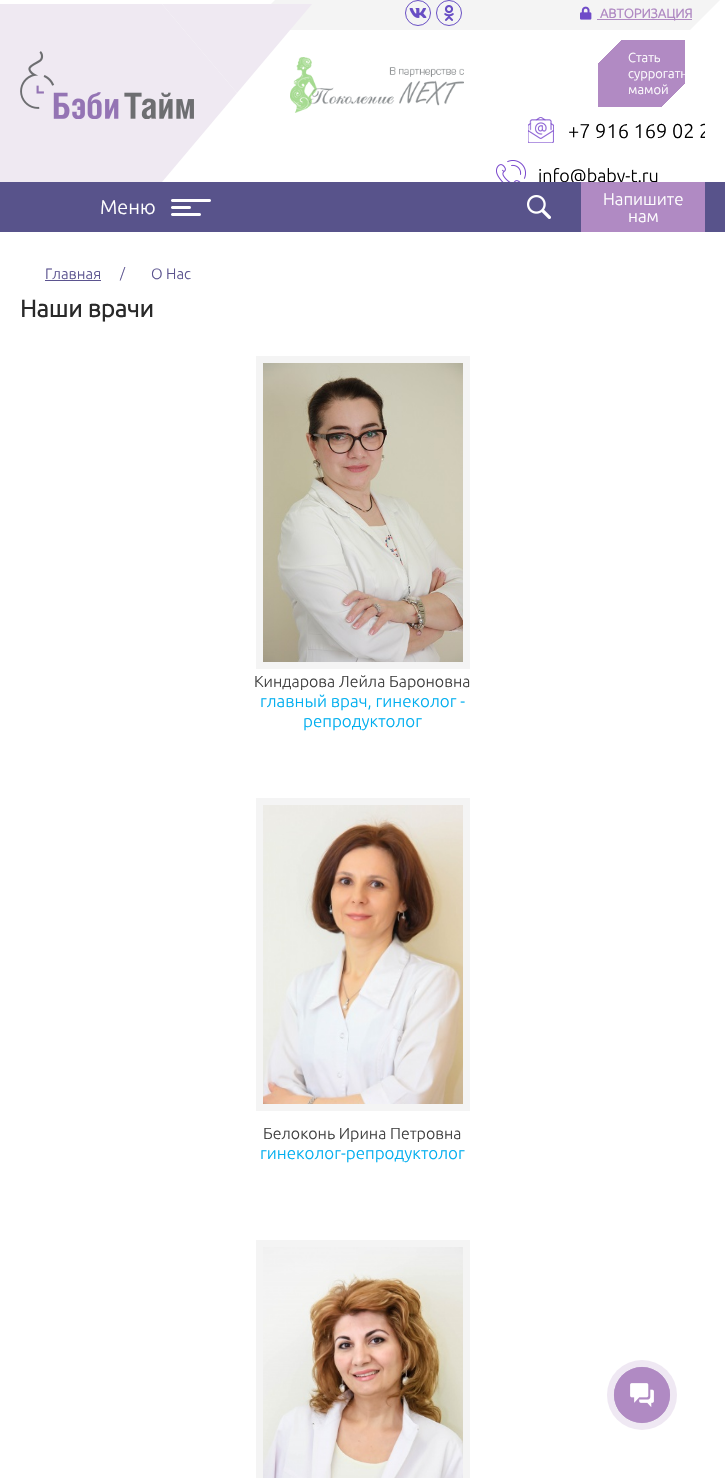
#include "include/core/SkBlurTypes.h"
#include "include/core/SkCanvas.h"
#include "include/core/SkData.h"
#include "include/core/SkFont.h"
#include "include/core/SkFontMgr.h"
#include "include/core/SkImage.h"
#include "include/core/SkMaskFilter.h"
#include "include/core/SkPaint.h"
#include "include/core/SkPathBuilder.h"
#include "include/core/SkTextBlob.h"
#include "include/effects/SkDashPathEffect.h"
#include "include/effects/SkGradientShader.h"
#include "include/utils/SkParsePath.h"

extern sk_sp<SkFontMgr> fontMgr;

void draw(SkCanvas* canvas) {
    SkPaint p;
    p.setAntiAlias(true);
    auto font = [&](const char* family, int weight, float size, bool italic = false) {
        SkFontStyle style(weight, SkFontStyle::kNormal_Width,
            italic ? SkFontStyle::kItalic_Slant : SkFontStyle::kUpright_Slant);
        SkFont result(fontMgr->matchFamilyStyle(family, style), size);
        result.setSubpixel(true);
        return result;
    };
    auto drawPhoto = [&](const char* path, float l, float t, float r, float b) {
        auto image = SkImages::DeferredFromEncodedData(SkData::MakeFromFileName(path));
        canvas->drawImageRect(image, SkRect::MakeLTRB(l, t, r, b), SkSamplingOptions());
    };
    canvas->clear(0xFFFFFFFF);
    p.setColor(0xFFF4F4F4);
    canvas->drawPath(SkPathBuilder().moveTo(275, 0).lineTo(720, 0).lineTo(690, 30).lineTo(245, 30).close().detach(), p);
    drawPhoto("media/1.png", 409, 8, 427, 18);
    p.setStyle(SkPaint::kStroke_Style);
    p.setStrokeWidth(1);
    p.setColor(0xFF684EC4);
    canvas->drawCircle(418, 13, 12.5f, p);
    drawPhoto("media/2.png", 444, 5, 454, 21);
    canvas->drawCircle(449, 13, 12.5f, p);
    drawPhoto("media/3.png", 580, 6, 592, 20);
    p.setStyle(SkPaint::kFill_Style);
    p.setColor(0xFFB08AC3);
    canvas->drawRect(SkRect::MakeLTRB(597, 19, 692, 20), p);
    auto font1 = font("Ubuntu", 700, 13);
    canvas->drawString("АВТОРИЗАЦИЯ", 600, 18, font1, p);
    p.setColor(0xFFEFE9F2);
    canvas->drawRect(SkRect::MakeLTRB(0, 4, 162, 182), p);
    canvas->drawPath(SkPathBuilder().moveTo(162, 4).lineTo(312, 4).lineTo(237, 93).close().detach(), p);
    canvas->drawPath(SkPathBuilder().moveTo(162, 182).lineTo(162, 4).lineTo(237, 93).close().detach(), p);
    drawPhoto("media/4.png", 20, 51, 194, 119);
    drawPhoto("media/5.png", 290, 57, 464, 113);
    {
        const SkColor colors[] = {0xFFFFFFFF, 0xFFFFFFFF, 0xFFB18AC3, 0xFFB18AC3, 0xFFFFFFFF, 0xFFFFFFFF};
        const float stops[] = {0, 0.15f, 0.15f, 0.85f, 0.85f, 1};
        const SkPoint ends[] = {{603, 35}, {680, 112}};
        p.setShader(SkGradientShader::MakeLinear(ends, colors, stops, 6, SkTileMode::kClamp));
        p.setAlpha(255);
    }
    canvas->drawRect(SkRect::MakeLTRB(598, 40, 685, 107), p);
    auto font2 = font("Ubuntu", 300, 13);
    p.setShader(nullptr);
    p.setColor(0xFFFFFFFF);
    {
        const struct { const char* s; float x, y; } items[] = {
            {"Стать", 628, 62},
            {"суррогатн", 628, 78},
            {"мамой", 628, 94},
        };
        for (auto [s, x, y] : items) {
            canvas->drawString(s, x, y, font2, p);
        }
    }
    drawPhoto("media/6.png", 528, 117, 554, 143);
    canvas->save();
    canvas->clipRect(SkRect::MakeLTRB(496, 30, 705, 182));
    auto font3 = font("Ubuntu", 300, 20);
    p.setColor(0xFF000000);
    canvas->drawString("+7 916 169 02 2", 568, 138, font3, p);
    canvas->restore();
    drawPhoto("media/7.png", 496, 160, 526, 182);
    auto font4 = font("Ubuntu", 300, 18);
    canvas->drawString("info@baby-t.ru", 538, 182, font4, p);
    p.setColor(0xFF58538B);
    canvas->drawRect(SkRect::MakeLTRB(0, 182, 725, 232), p);
    p.setColor(0xFFFFFFFF);
    canvas->drawString("Меню", 100, 214, font3, p);
    drawPhoto("media/8.png", 171, 199, 211, 216);
    drawPhoto("media/9.png", 527, 195, 551, 219);
    p.setColor(0xFFB08AC3);
    canvas->drawRect(SkRect::MakeLTRB(581, 182, 705, 232), p);
    auto font5 = font("Ubuntu", 300, 17);
    p.setColor(0xFFFFFFFF);
    canvas->drawString("Напишите", 603, 205, font5, p);
    canvas->drawString("нам", 628, 222, font5, p);
    auto font6 = font("Ubuntu", 300, 15);
    p.setColor(0xFF5B538F);
    canvas->drawString("Главная", 45, 279, font6, p);
    canvas->drawRect(SkRect::MakeLTRB(45, 280, 101, 281), p);
    auto font7 = font("Ubuntu", 300, 14);
    canvas->drawString("/", 120, 278, font7, p);
    canvas->drawString("О Нас", 151, 279, font6, p);
    auto font8 = font("Ubuntu", 700, 24);
    p.setColor(0xFF292929);
    canvas->drawString("Наши врачи", 20, 317, font8, p);
    p.setStyle(SkPaint::kStroke_Style);
    p.setStrokeWidth(7);
    p.setColor(0xFFF4F4F4);
    canvas->drawRect(SkRect::MakeLTRB(259.5f, 359.5f, 466.5f, 665.5f), p);
    drawPhoto("media/10.png", 263, 363, 463, 662);
    auto font9 = font("Ubuntu", 300, 16);
    p.setStyle(SkPaint::kFill_Style);
    p.setColor(0xFF414141);
    canvas->drawString("Киндарова Лейла Бароновна", 254, 687, font9, p);
    p.setColor(0xFF00AEEF);
    canvas->drawString("главный врач, гинеколог -", 260, 707, font5, p);
    canvas->drawString("репродуктолог", 303, 727, font5, p);
    p.setStyle(SkPaint::kStroke_Style);
    p.setColor(0xFFF4F4F4);
    canvas->drawRect(SkRect::MakeLTRB(259.5f, 801.5f, 466.5f, 1107.5f), p);
    drawPhoto("media/11.png", 263, 805, 463, 1104);
    p.setStyle(SkPaint::kFill_Style);
    p.setColor(0xFF414141);
    canvas->drawString("Белоконь Ирина Петровна", 263, 1139, font9, p);
    p.setColor(0xFF00AEEF);
    canvas->drawString("гинеколог-репродуктолог", 260, 1159, font5, p);
    p.setStyle(SkPaint::kStroke_Style);
    p.setColor(0xFFF4F4F4);
    canvas->drawRect(SkRect::MakeLTRB(259.5f, 1243.5f, 466.5f, 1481.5f), p);
    drawPhoto("media/12.png", 263, 1247, 463, 1478);
    p.setStyle(SkPaint::kFill_Style);
    p.setColor(0xFFEFE8F3);
    canvas->drawCircle(642, 1395, 35, p);
    p.setStyle(SkPaint::kStroke_Style);
    p.setStrokeWidth(0.8f);
    p.setColor(0xFFB08AC3);
    canvas->drawCircle(642, 1395, 27.6f, p);
    p.setStyle(SkPaint::kFill_Style);
    canvas->drawCircle(642, 1395, 28, p);
    drawPhoto("media/13.png", 630, 1383, 654, 1407);
}
